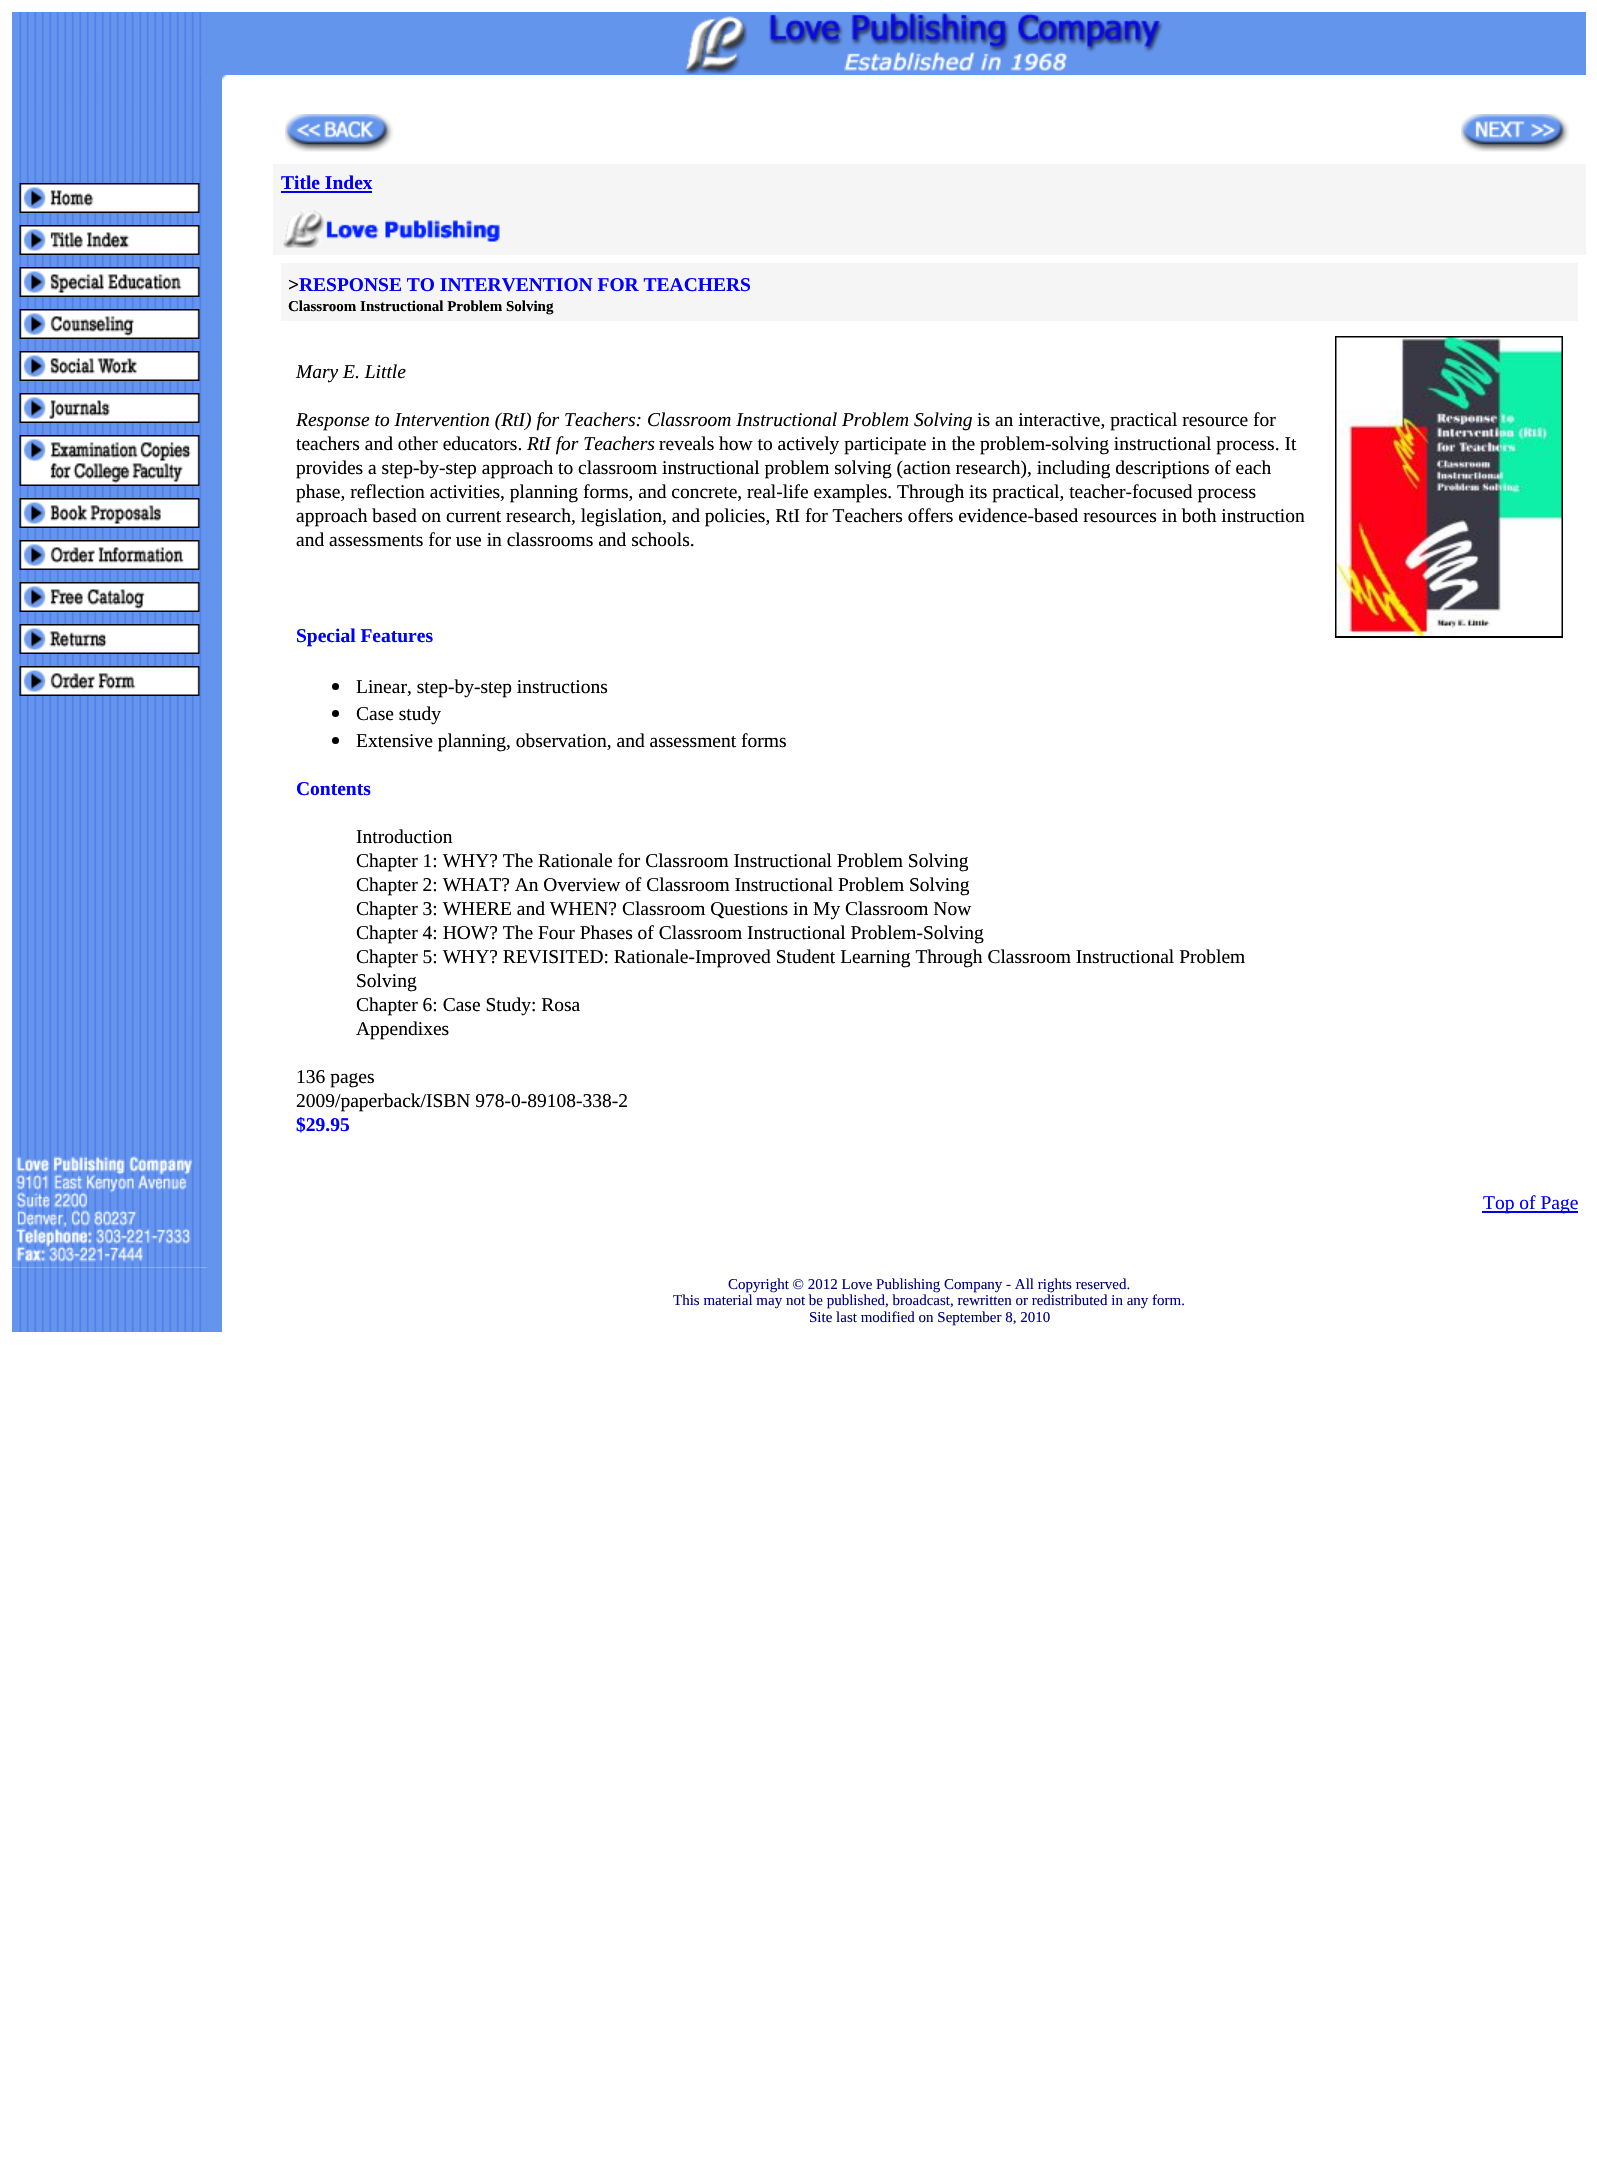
#include "include/core/SkBlurTypes.h"
#include "include/core/SkCanvas.h"
#include "include/core/SkData.h"
#include "include/core/SkFont.h"
#include "include/core/SkFontMgr.h"
#include "include/core/SkImage.h"
#include "include/core/SkMaskFilter.h"
#include "include/core/SkPaint.h"
#include "include/core/SkPathBuilder.h"
#include "include/core/SkTextBlob.h"
#include "include/effects/SkDashPathEffect.h"
#include "include/effects/SkGradientShader.h"
#include "include/utils/SkParsePath.h"

extern sk_sp<SkFontMgr> fontMgr;

void draw(SkCanvas* canvas) {
    SkPaint p;
    p.setAntiAlias(true);
    auto font = [&](const char* family, int weight, float size, bool italic = false) {
        SkFontStyle style(weight, SkFontStyle::kNormal_Width,
            italic ? SkFontStyle::kItalic_Slant : SkFontStyle::kUpright_Slant);
        SkFont result(fontMgr->matchFamilyStyle(family, style), size);
        result.setSubpixel(true);
        return result;
    };
    auto drawPhoto = [&](const char* path, float l, float t, float r, float b) {
        auto image = SkImages::DeferredFromEncodedData(SkData::MakeFromFileName(path));
        canvas->drawImageRect(image, SkRect::MakeLTRB(l, t, r, b), SkSamplingOptions());
    };
    canvas->clear(0xFFFFFFFF);
    drawPhoto("media/1.png", 12, 12, 207, 75);
    p.setColor(0xFF6495ED);
    canvas->drawRect(SkRect::MakeLTRB(207, 12, 1586, 75), p);
    drawPhoto("media/2.png", 684, 16, 747, 74);
    drawPhoto("media/3.png", 768, 13, 1164, 71);
    drawPhoto("media/4.png", 12, 75, 207, 102);
    canvas->drawRect(SkRect::MakeLTRB(207, 75, 222, 1332), p);
    drawPhoto("media/5.png", 222, 75, 227, 80);
    drawPhoto("media/6.png", 12, 102, 207, 1268);
    drawPhoto("media/7.png", 19, 183, 200, 213);
    drawPhoto("media/8.png", 19, 225, 200, 255);
    drawPhoto("media/9.png", 19, 267, 200, 297);
    drawPhoto("media/10.png", 19, 309, 200, 339);
    drawPhoto("media/11.png", 19, 351, 200, 381);
    drawPhoto("media/12.png", 19, 393, 200, 423);
    drawPhoto("media/13.png", 19, 435, 200, 486);
    drawPhoto("media/14.png", 19, 498, 200, 528);
    drawPhoto("media/15.png", 19, 540, 200, 570);
    drawPhoto("media/16.png", 19, 582, 200, 612);
    drawPhoto("media/17.png", 19, 624, 200, 654);
    drawPhoto("media/18.png", 19, 666, 200, 696);
    drawPhoto("media/19.png", 16, 1156, 193, 1262);
    drawPhoto("media/20.png", 285, 114, 394, 152);
    drawPhoto("media/21.png", 1461, 114, 1570, 152);
    p.setColor(0xFFF5F5F5);
    canvas->drawRect(SkRect::MakeLTRB(273, 164, 1586, 255), p);
    auto font1 = font("Liberation Serif", 700, 19.5f);
    p.setColor(0xFF0000EE);
    canvas->drawString("Title Index", 281, 189, font1, p);
    canvas->drawRect(SkRect::MakeLTRB(281, 191, 372, 193), p);
    drawPhoto("media/22.png", 282, 210, 500, 248);
    p.setColor(0xFFF5F5F5);
    canvas->drawRect(SkRect::MakeLTRB(281, 263, 1578, 321), p);
    p.setColor(0xFF000000);
    canvas->drawString(">", 288, 291, font1, p);
    p.setColor(0xFF0000FF);
    canvas->drawString("RESPONSE TO INTERVENTION FOR TEACHERS", 299, 291, font1, p);
    auto font2 = font("Liberation Serif", 700, 15);
    p.setColor(0xFF000000);
    canvas->drawString("Classroom Instructional Problem Solving", 288, 311, font2, p);
    auto font3 = font("Liberation Serif", 400, 19.5f, true);
    canvas->drawString("Mary E. Little", 296, 378, font3, p);
    canvas->drawString("Response to Intervention (RtI) for Teachers: Classroom Instructional Problem Solving", 296, 426, font3, p);
    auto font4 = font("Liberation Serif", 400, 19.5f);
    canvas->drawString("is an interactive, practical resource for", 977, 426, font4, p);
    canvas->drawString("teachers and other educators.", 296, 450, font4, p);
    canvas->drawString("RtI for Teachers", 527, 450, font3, p);
    {
        const struct { const char* s; float x, y; } items[] = {
            {"reveals how to actively participate in the problem-solving instructional process. It", 659, 450},
            {"provides a step-by-step approach to classroom instructional problem solving (action research), including descriptions of each", 296, 474},
            {"phase, reflection activities, planning forms, and concrete, real-life examples. Through its practical, teacher-focused process", 296, 498},
            {"approach based on current research, legislation, and policies, RtI for Teachers offers evidence-based resources in both instruction", 296, 522},
            {"and assessments for use in classrooms and schools.", 296, 546},
        };
        for (auto [s, x, y] : items) {
            canvas->drawString(s, x, y, font4, p);
        }
    }
    p.setColor(0xFF0000FF);
    canvas->drawString("Special Features", 296, 642, font1, p);
    p.setColor(0xFF000000);
    canvas->drawCircle(335.5f, 686.5f, 3.5f, p);
    canvas->drawString("Linear, step-by-step instructions", 356, 693, font4, p);
    canvas->drawCircle(335.5f, 713.5f, 3.5f, p);
    canvas->drawString("Case study", 356, 720, font4, p);
    canvas->drawCircle(335.5f, 740.5f, 3.5f, p);
    canvas->drawString("Extensive planning, observation, and assessment forms", 356, 747, font4, p);
    p.setColor(0xFF0000FF);
    canvas->drawString("Contents", 296, 795, font1, p);
    p.setColor(0xFF000000);
    {
        const struct { const char* s; float x, y; } items[] = {
            {"Introduction", 356, 843},
            {"Chapter 1: WHY? The Rationale for Classroom Instructional Problem Solving", 356, 867},
            {"Chapter 2: WHAT? An Overview of Classroom Instructional Problem Solving", 356, 891},
            {"Chapter 3: WHERE and WHEN? Classroom Questions in My Classroom Now", 356, 915},
            {"Chapter 4: HOW? The Four Phases of Classroom Instructional Problem-Solving", 356, 939},
            {"Chapter 5: WHY? REVISITED: Rationale-Improved Student Learning Through Classroom Instructional Problem", 356, 963},
            {"Solving", 356, 987},
            {"Chapter 6: Case Study: Rosa", 356, 1011},
            {"Appendixes", 356, 1035},
            {"136 pages", 296, 1083},
            {"2009/paperback/ISBN 978-0-89108-338-2", 296, 1107},
        };
        for (auto [s, x, y] : items) {
            canvas->drawString(s, x, y, font4, p);
        }
    }
    p.setColor(0xFF0000FF);
    canvas->drawString("$29.95", 296, 1131, font1, p);
    p.setStyle(SkPaint::kStroke_Style);
    p.setStrokeWidth(2);
    p.setColor(0xFF000000);
    canvas->drawRect(SkRect::MakeLTRB(1336, 337, 1562, 637), p);
    drawPhoto("media/23.png", 1336, 337, 1562, 636);
    p.setStyle(SkPaint::kFill_Style);
    p.setColor(0xFF0000EE);
    canvas->drawRect(SkRect::MakeLTRB(1482, 1211, 1578, 1213), p);
    canvas->drawString("Top of Page", 1483, 1209, font4, p);
    drawPhoto("media/24.png", 12, 1267, 207, 1332);
    auto font5 = font("Liberation Serif", 400, 15);
    p.setColor(0xFF000080);
    {
        const struct { const char* s; float x, y; } items[] = {
            {"Copyright © 2012 Love Publishing Company - All rights reserved.", 728, 1289},
            {"This material may not be published, broadcast, rewritten or redistributed in any form.", 673, 1305},
            {"Site last modified on September 8, 2010", 809, 1322},
        };
        for (auto [s, x, y] : items) {
            canvas->drawString(s, x, y, font5, p);
        }
    }
}
